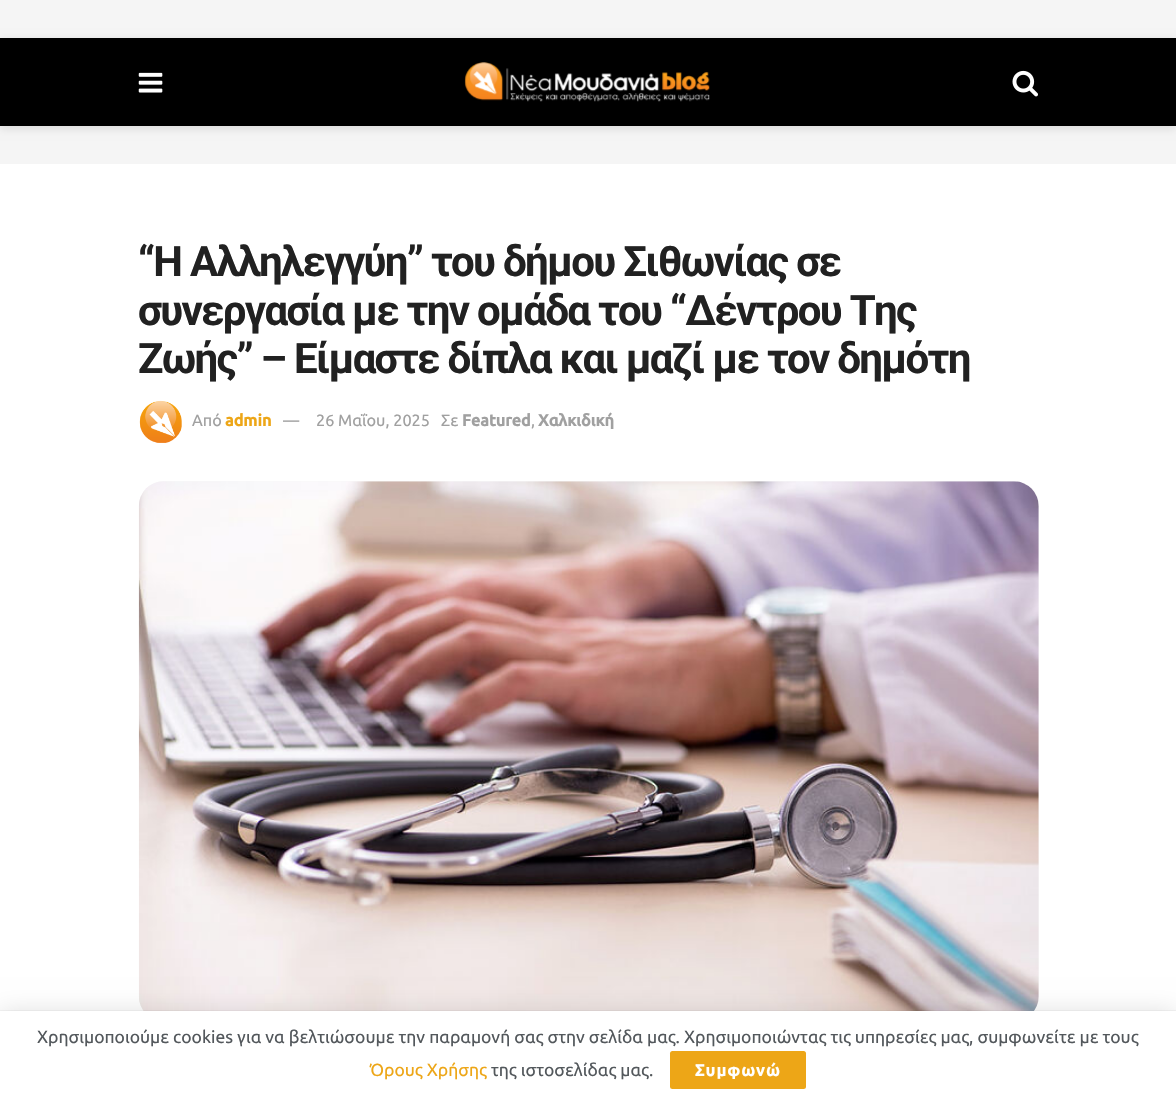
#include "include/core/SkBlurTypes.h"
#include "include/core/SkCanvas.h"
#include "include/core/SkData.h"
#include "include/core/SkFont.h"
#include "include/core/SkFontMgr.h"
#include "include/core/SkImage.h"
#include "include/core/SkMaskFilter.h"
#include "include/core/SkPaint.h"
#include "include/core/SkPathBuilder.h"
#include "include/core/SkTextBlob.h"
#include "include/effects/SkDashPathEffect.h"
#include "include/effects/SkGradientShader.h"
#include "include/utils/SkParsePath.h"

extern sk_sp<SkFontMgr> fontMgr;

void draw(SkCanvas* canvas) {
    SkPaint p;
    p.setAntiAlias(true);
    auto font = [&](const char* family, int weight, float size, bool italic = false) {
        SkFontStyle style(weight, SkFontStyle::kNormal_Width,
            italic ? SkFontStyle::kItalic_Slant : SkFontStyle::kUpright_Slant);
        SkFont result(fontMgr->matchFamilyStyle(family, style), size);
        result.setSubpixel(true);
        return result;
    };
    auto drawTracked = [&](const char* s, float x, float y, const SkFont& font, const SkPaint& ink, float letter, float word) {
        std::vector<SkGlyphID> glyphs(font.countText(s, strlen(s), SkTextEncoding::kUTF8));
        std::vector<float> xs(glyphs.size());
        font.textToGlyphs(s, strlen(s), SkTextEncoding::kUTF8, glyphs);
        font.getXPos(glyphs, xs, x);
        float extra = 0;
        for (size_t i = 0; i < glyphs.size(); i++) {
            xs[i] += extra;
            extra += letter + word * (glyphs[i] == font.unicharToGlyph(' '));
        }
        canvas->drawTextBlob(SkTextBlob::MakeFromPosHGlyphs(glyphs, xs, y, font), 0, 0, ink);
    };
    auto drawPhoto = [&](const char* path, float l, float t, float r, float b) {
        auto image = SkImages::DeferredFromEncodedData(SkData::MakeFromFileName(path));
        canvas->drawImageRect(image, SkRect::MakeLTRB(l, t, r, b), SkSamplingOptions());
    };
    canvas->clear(0xFFFFFFFF);
    p.setColor(0xFFF5F5F5);
    canvas->drawRect(SkRect::MakeLTRB(0, 0, 1176, 38), p);
    canvas->drawRect(SkRect::MakeLTRB(0, 126, 1176, 164), p);
    p.setColor(0x1A000000);
    p.setMaskFilter(SkMaskFilter::MakeBlur(kNormal_SkBlurStyle, 4));
    canvas->drawRect(SkRect::MakeLTRB(0, 40, 1176, 129), p);
    p.setMaskFilter(nullptr);
    p.setColor(0xFF000000);
    canvas->drawRect(SkRect::MakeLTRB(0, 38, 1176, 126), p);
    drawPhoto("media/1.png", 138, 72, 163, 93);
    drawPhoto("media/2.png", 464, 62, 710, 102);
    drawPhoto("media/3.png", 1012, 70, 1038, 97);
    auto font1 = font("Roboto", 700, 42);
    p.setColor(0xFF212121);
    {
        const struct { const char* s; float x, y; } items[] = {
            {"“Η Αλληλεγγύη” του δήμου Σιθωνίας σε", 138, 276},
            {"συνεργασία με την ομάδα του “Δέντρου Της", 138, 325},
            {"Ζωής” – Είμαστε δίπλα και μαζί με τον δημότη", 138, 373},
        };
        for (auto [s, x, y] : items) {
            drawTracked(s, x, y, font1, p, -1.7f, 0);
        }
    }
    drawPhoto("media/4.png", 139, 400, 182, 443);
    auto font2 = font("Ubuntu", 400, 16.25f);
    p.setColor(0xFFA0A0A0);
    canvas->drawString("Από", 192, 426, font2, p);
    auto font3 = font("Ubuntu", 700, 16.25f);
    p.setColor(0xFFEDA617);
    canvas->drawString("admin", 225, 426, font3, p);
    p.setColor(0xFFA0A0A0);
    {
        const struct { const char* s; float x, y; } items[] = {
            {"—", 283, 426},
            {"26 Μαΐου, 2025", 316, 426},
            {"Σε", 441, 426},
        };
        for (auto [s, x, y] : items) {
            canvas->drawString(s, x, y, font2, p);
        }
    }
    canvas->drawString("Featured", 462, 426, font3, p);
    canvas->drawString(",", 531, 426, font2, p);
    canvas->drawString("Χαλκιδική", 538, 426, font3, p);
    p.setColor(0xFFF7F7F7);
    canvas->drawRoundRect(SkRect::MakeLTRB(139, 481, 1039, 1021), 25, 25, p);
    drawPhoto("media/5.png", 138, 481, 1039, 1011);
    p.setColor(0x26000000);
    p.setMaskFilter(SkMaskFilter::MakeBlur(kNormal_SkBlurStyle, 12.5f));
    canvas->drawRect(SkRect::MakeLTRB(0, 1014, 1176, 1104), p);
    p.setMaskFilter(nullptr);
    p.setColor(0x33000000);
    p.setMaskFilter(SkMaskFilter::MakeBlur(kNormal_SkBlurStyle, 0.5f));
    canvas->drawRect(SkRect::MakeLTRB(0, 1011, 1176, 1101), p);
    p.setMaskFilter(nullptr);
    p.setColor(0xFFFFFFFF);
    canvas->drawRect(SkRect::MakeLTRB(0, 1011, 1176, 1101), p);
    auto font4 = font("Ubuntu", 400, 17.5f);
    p.setColor(0xFF53585C);
    canvas->drawString("Χρησιμοποιούμε cookies για να βελτιώσουμε την παραμονή σας στην σελίδα μας. Χρησιμοποιώντας τις υπηρεσίες μας, συμφωνείτε με τους", 37, 1043, font4, p);
    p.setColor(0xFFEDA617);
    canvas->drawString("Όρους Χρήσης", 370, 1076, font4, p);
    p.setColor(0xFF53585C);
    canvas->drawString("της ιστοσελίδας μας.", 491, 1076, font4, p);
    p.setColor(0xFFEDA617);
    canvas->drawRoundRect(SkRect::MakeLTRB(670, 1051, 806, 1089), 2.5f, 2.5f, p);
    p.setColor(0xFFFFFFFF);
    drawTracked("Συμφωνώ", 695, 1076, font3, p, 1.25f, 0);
}
